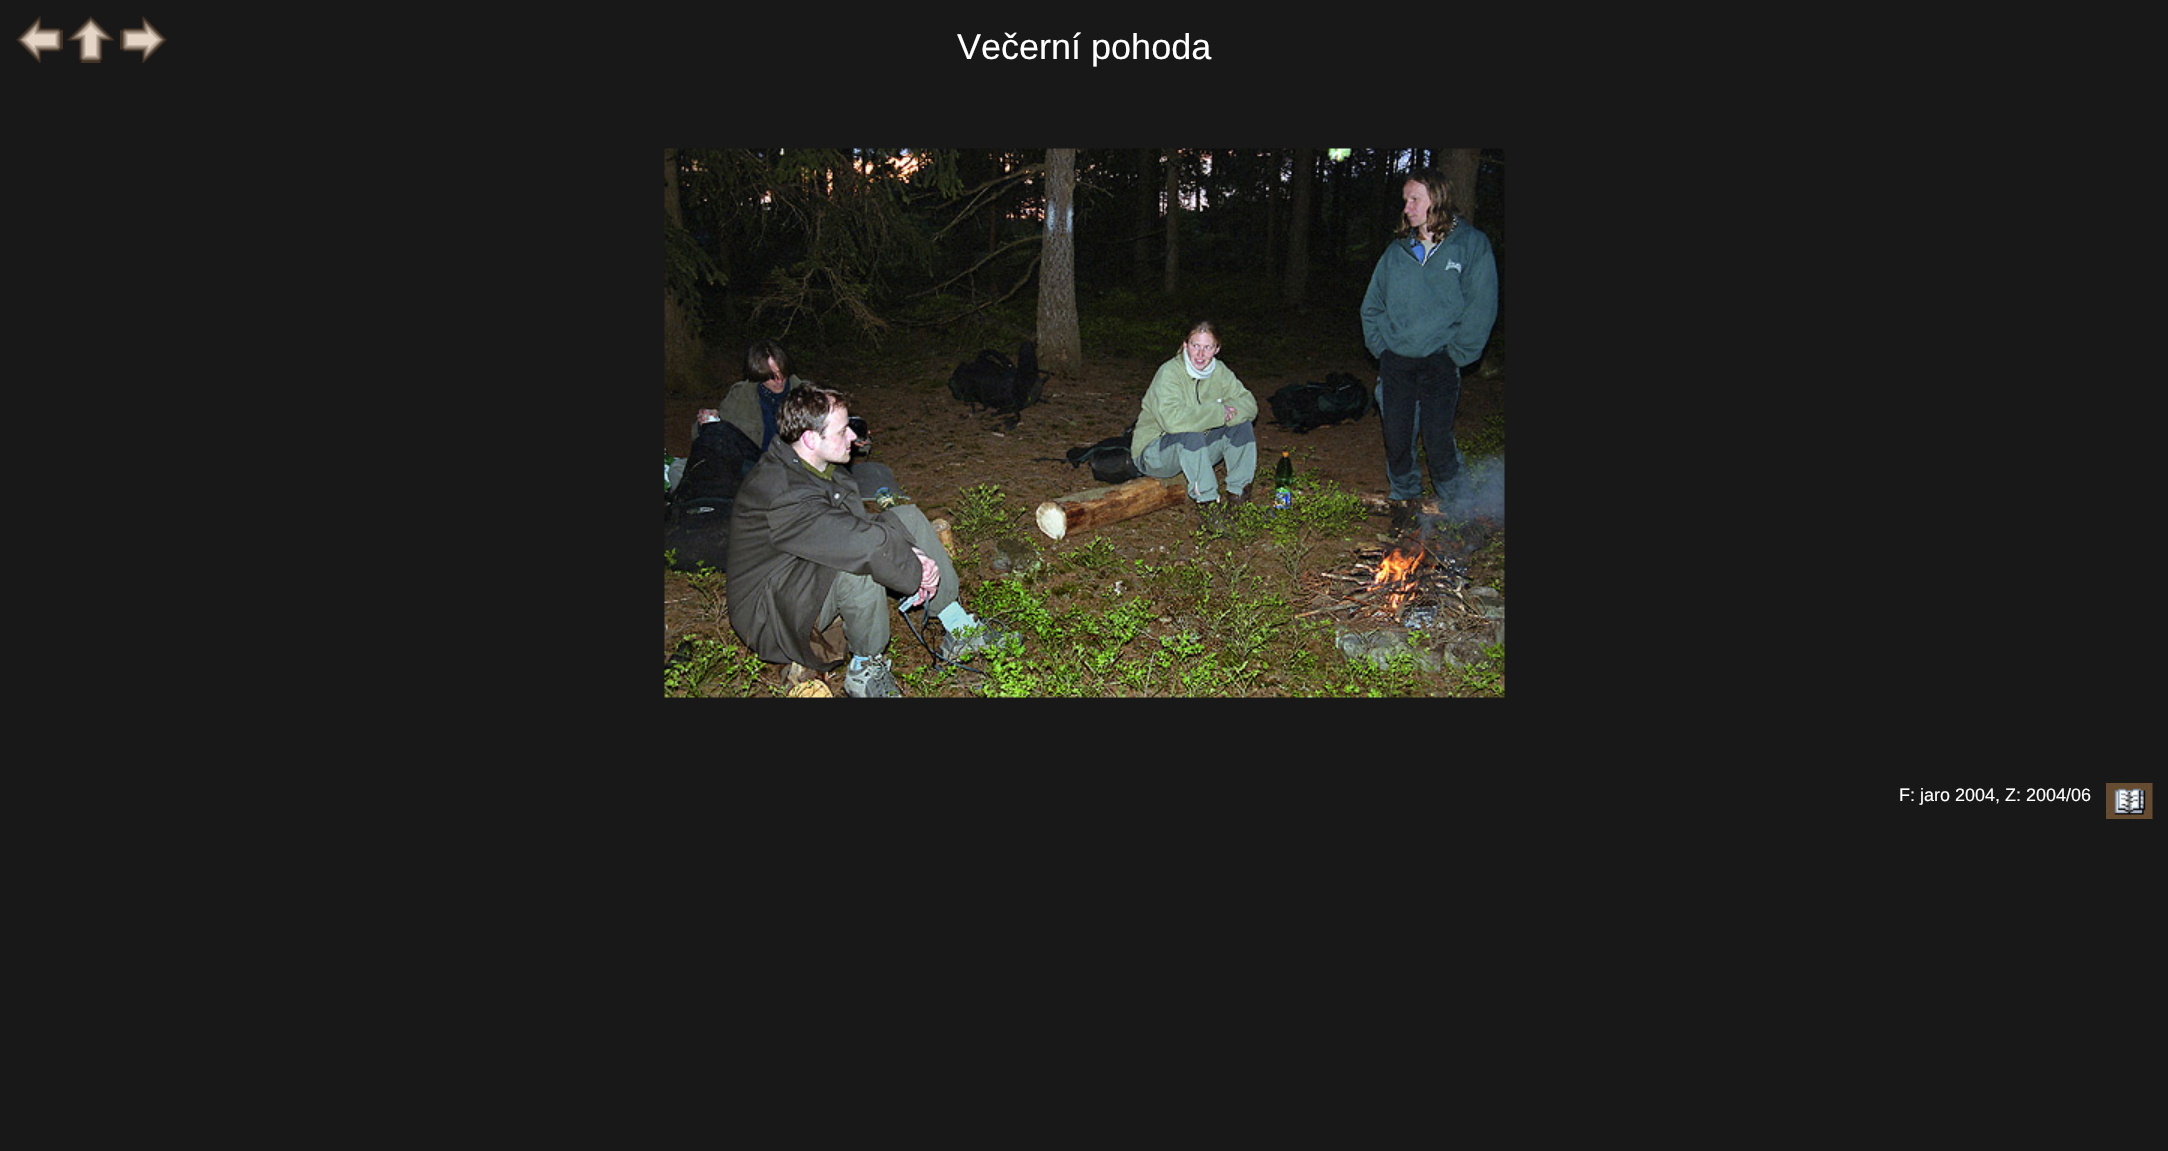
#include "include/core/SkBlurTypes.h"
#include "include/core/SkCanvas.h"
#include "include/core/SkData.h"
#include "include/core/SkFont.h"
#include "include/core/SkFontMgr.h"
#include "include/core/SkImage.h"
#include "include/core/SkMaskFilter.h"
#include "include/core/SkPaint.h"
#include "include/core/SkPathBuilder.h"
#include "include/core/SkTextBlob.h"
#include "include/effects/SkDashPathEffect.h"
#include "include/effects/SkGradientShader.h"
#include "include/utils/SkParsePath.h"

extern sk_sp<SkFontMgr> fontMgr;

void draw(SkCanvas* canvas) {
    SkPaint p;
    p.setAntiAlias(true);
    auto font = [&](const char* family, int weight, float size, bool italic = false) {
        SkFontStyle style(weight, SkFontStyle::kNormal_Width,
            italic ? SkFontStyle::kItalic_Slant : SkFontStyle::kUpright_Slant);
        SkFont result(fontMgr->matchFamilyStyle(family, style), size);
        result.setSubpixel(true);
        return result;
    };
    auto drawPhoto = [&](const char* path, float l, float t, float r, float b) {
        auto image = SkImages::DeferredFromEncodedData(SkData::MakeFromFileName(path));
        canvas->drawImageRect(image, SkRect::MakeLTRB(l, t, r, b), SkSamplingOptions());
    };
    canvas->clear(0xFF181818);
    drawPhoto("media/1.png", 16, 16, 63, 63);
    drawPhoto("media/2.png", 67, 16, 114, 63);
    drawPhoto("media/3.png", 120, 16, 167, 63);
    auto font1 = font("Liberation Sans", 400, 36);
    p.setColor(0xFFFFFFFF);
    canvas->drawString("Večerní pohoda", 957, 59, font1, p);
    drawPhoto("media/4.png", 664, 148, 1505, 698);
    auto font2 = font("Liberation Sans", 400, 18);
    canvas->drawString("F: jaro 2004, Z: 2004/06", 1899, 801, font2, p);
    drawPhoto("media/5.png", 2106, 783, 2153, 819);
}
